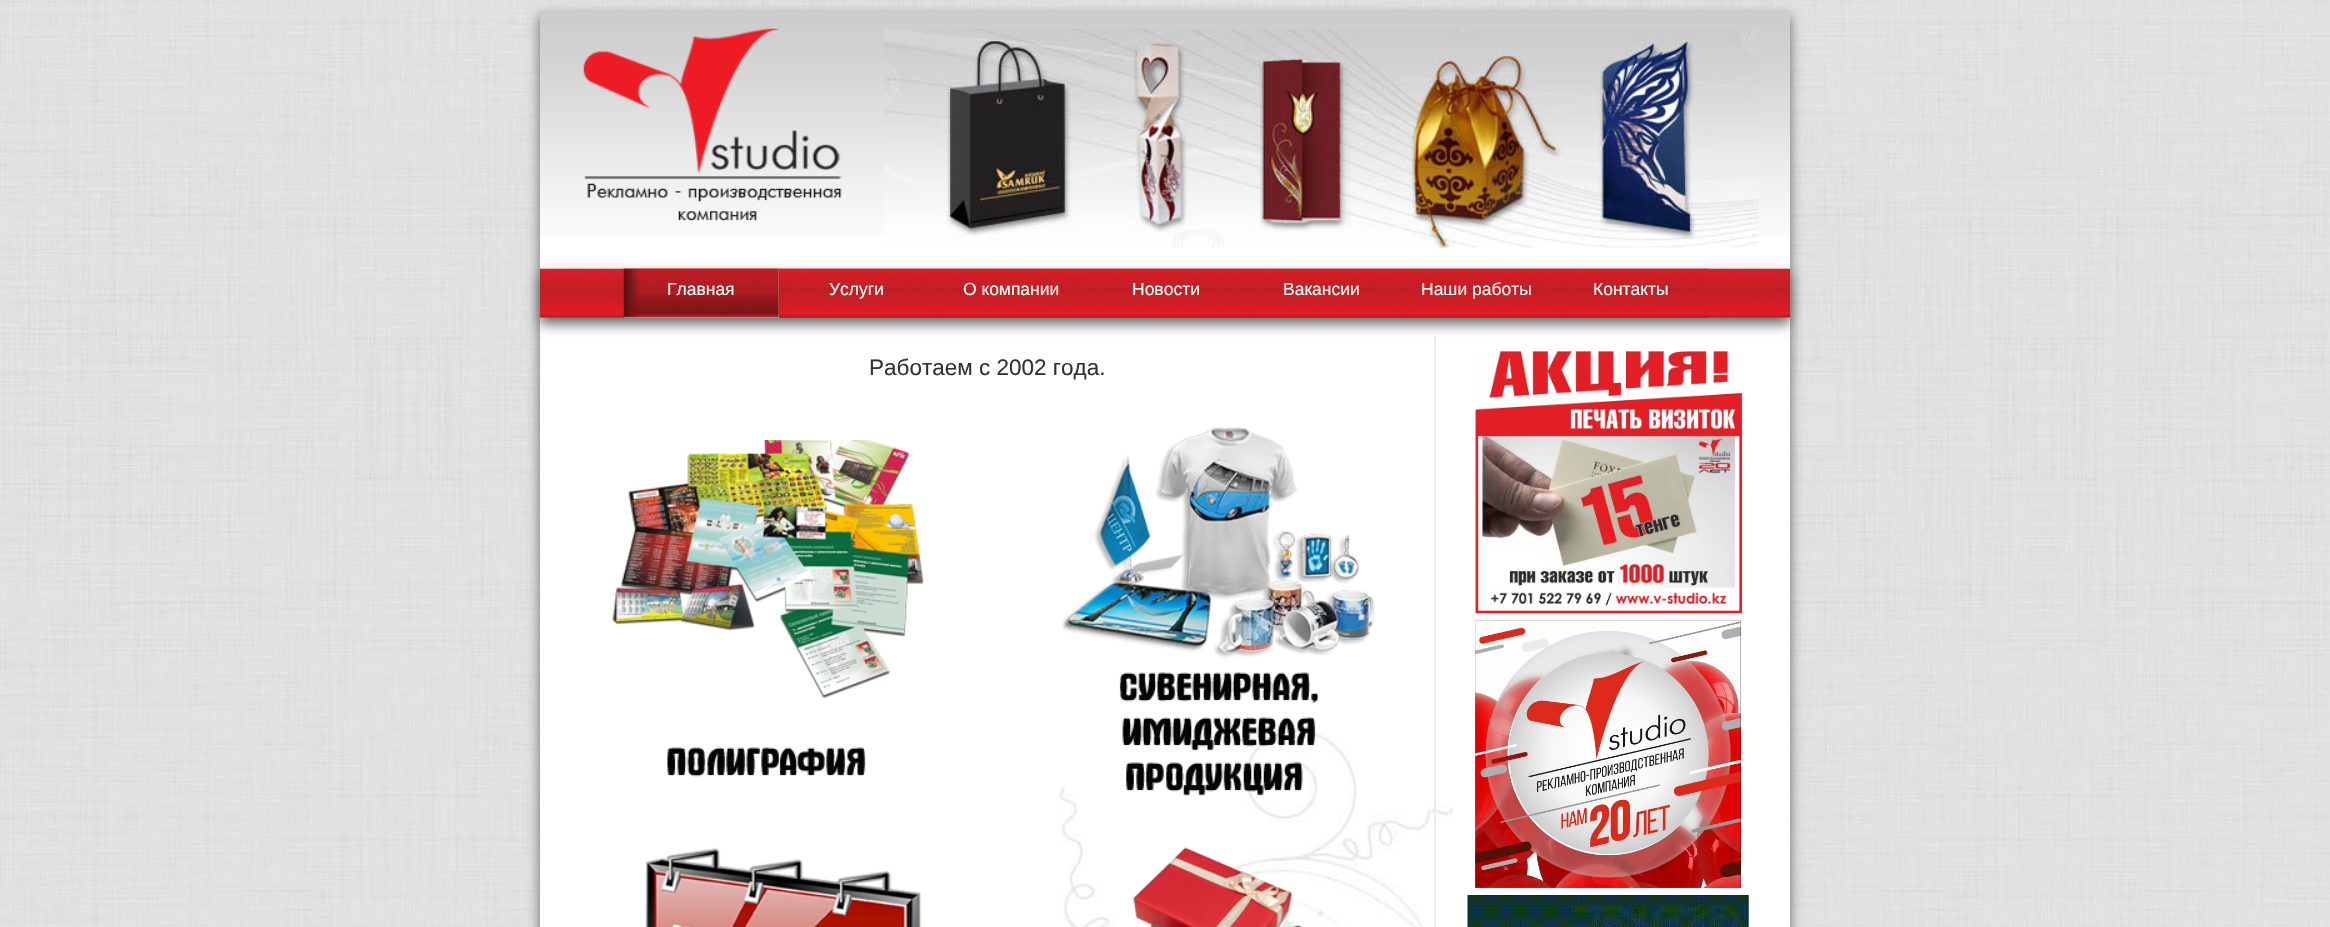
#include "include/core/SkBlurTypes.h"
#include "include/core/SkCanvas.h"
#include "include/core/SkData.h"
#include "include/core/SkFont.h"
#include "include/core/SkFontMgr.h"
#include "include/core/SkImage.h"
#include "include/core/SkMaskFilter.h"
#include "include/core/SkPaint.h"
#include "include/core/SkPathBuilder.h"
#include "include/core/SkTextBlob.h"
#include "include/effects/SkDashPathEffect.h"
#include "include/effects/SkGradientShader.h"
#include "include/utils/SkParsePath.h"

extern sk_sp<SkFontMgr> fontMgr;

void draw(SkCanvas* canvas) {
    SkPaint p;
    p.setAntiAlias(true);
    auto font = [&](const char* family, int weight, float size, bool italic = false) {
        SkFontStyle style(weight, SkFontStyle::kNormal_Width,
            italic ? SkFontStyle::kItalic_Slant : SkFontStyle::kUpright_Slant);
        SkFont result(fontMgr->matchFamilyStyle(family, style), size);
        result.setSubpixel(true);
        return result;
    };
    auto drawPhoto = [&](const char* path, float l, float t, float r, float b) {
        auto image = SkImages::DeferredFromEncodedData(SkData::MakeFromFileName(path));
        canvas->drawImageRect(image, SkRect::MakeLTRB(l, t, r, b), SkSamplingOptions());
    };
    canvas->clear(0xFFFFFFFF);
    drawPhoto("media/1.png", 0, 0, 2330, 927);
    p.setColor(0xFF666666);
    p.setMaskFilter(SkMaskFilter::MakeBlur(kNormal_SkBlurStyle, 6));
    canvas->drawRect(SkRect::MakeLTRB(540, 16, 1790, 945), p);
    p.setMaskFilter(nullptr);
    drawPhoto("media/2.png", 540, 236, 1790, 927);
    drawPhoto("media/3.png", 540, 10, 1790, 236);
    drawPhoto("media/4.png", 583, 28, 843, 221);
    drawPhoto("media/5.png", 884, 29, 1759, 248);
    p.setColor(0xFFEEEEEE);
    canvas->drawRect(SkRect::MakeLTRB(1434, 336, 1436, 927), p);
    p.setColor(0xFF666666);
    p.setMaskFilter(SkMaskFilter::MakeBlur(kNormal_SkBlurStyle, 6));
    canvas->drawRect(SkRect::MakeLTRB(540, 275, 1790, 324), p);
    p.setMaskFilter(nullptr);
    drawPhoto("media/6.png", 540, 268, 1790, 318);
    drawPhoto("media/7.png", 623, 268, 779, 318);
    p.setColor(0xFFD92727);
    canvas->drawRect(SkRect::MakeLTRB(779, 269, 1709, 318), p);
    drawPhoto("media/9.png", 778, 268, 934, 318);
    p.setColor(0xFFD8D8D9);
    canvas->drawRect(SkRect::MakeLTRB(624, 269, 779, 318), p);
    drawPhoto("media/8.png", 623, 268, 779, 318);
    auto font1 = font("Liberation Sans", 400, 17.5f);
    p.setColor(0xFFFFFFFF);
    canvas->drawString("Главная", 667, 295, font1, p);
    canvas->drawString("Услуги", 829, 295, font1, p);
    drawPhoto("media/10.png", 933, 268, 1089, 318);
    canvas->drawString("О компании", 963, 295, font1, p);
    drawPhoto("media/11.png", 1088, 268, 1244, 318);
    canvas->drawString("Новости", 1132, 295, font1, p);
    drawPhoto("media/12.png", 1243, 268, 1399, 318);
    canvas->drawString("Вакансии", 1283, 295, font1, p);
    drawPhoto("media/11.png", 1398, 268, 1554, 318);
    canvas->drawString("Наши работы", 1421, 295, font1, p);
    drawPhoto("media/13.png", 1553, 268, 1709, 318);
    canvas->drawString("Контакты", 1593, 295, font1, p);
    auto font2 = font("Liberation Sans", 400, 22.5f);
    p.setColor(0xFF333333);
    canvas->drawString("Работаем с 2002 года.", 869, 375, font2, p);
    drawPhoto("media/14.png", 612, 440, 924, 777);
    drawPhoto("media/15.png", 1062, 427, 1375, 796);
    drawPhoto("media/16.png", 645, 847, 922, 927);
    drawPhoto("media/17.png", 1132, 847, 1303, 927);
    drawPhoto("media/18.png", 1472, 620, 1743, 895);
    drawPhoto("media/19.png", 1467, 895, 1749, 927);
    drawPhoto("media/20.png", 1474, 351, 1743, 614);
}
